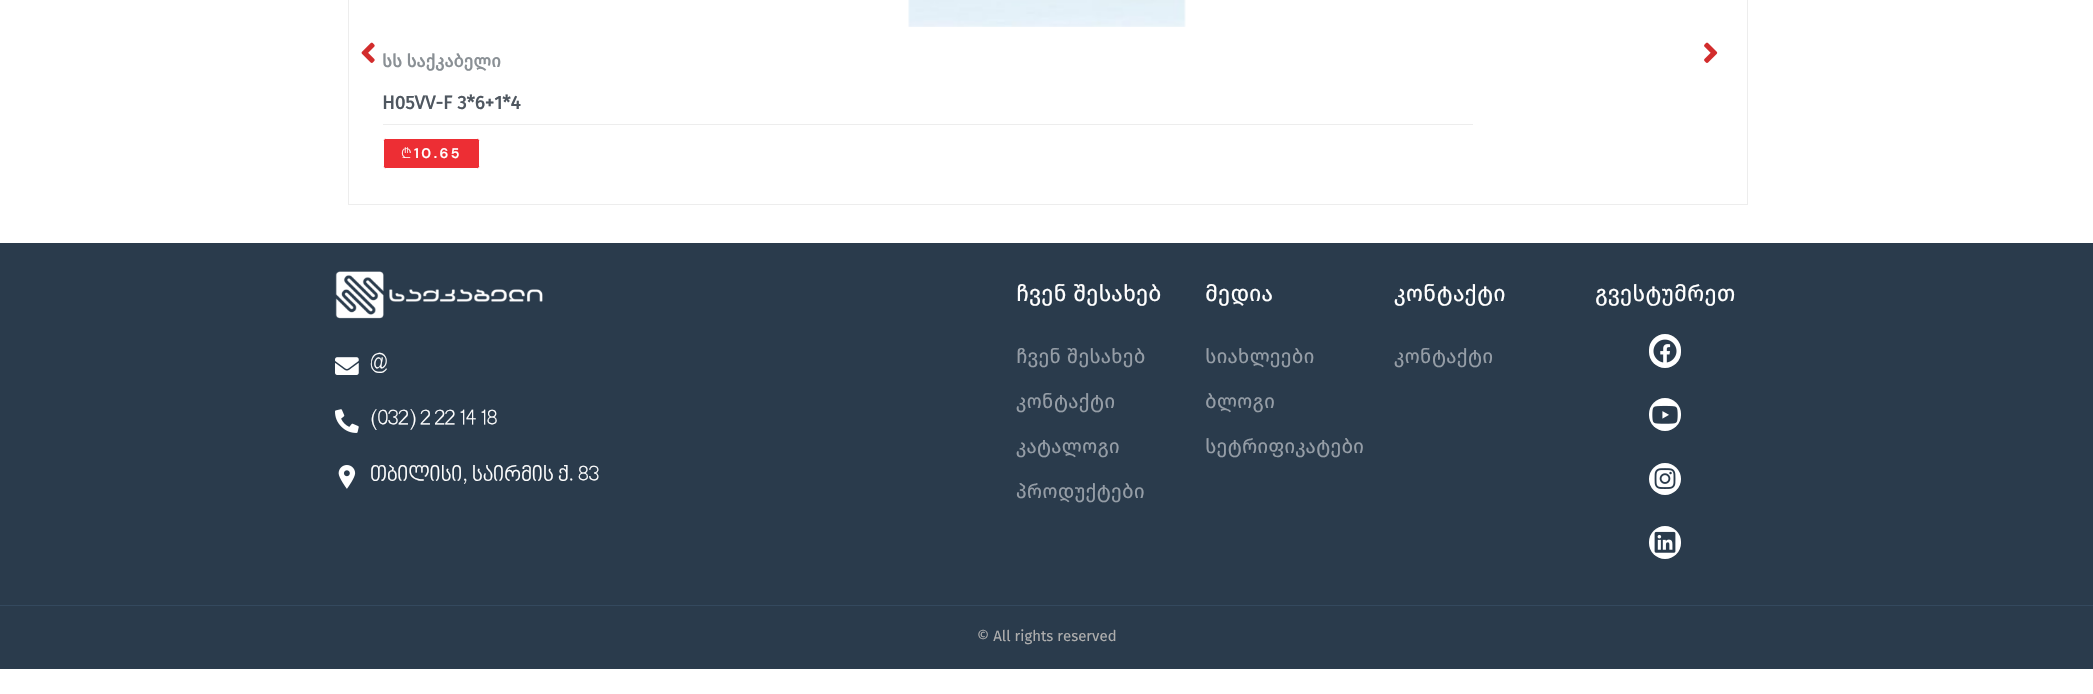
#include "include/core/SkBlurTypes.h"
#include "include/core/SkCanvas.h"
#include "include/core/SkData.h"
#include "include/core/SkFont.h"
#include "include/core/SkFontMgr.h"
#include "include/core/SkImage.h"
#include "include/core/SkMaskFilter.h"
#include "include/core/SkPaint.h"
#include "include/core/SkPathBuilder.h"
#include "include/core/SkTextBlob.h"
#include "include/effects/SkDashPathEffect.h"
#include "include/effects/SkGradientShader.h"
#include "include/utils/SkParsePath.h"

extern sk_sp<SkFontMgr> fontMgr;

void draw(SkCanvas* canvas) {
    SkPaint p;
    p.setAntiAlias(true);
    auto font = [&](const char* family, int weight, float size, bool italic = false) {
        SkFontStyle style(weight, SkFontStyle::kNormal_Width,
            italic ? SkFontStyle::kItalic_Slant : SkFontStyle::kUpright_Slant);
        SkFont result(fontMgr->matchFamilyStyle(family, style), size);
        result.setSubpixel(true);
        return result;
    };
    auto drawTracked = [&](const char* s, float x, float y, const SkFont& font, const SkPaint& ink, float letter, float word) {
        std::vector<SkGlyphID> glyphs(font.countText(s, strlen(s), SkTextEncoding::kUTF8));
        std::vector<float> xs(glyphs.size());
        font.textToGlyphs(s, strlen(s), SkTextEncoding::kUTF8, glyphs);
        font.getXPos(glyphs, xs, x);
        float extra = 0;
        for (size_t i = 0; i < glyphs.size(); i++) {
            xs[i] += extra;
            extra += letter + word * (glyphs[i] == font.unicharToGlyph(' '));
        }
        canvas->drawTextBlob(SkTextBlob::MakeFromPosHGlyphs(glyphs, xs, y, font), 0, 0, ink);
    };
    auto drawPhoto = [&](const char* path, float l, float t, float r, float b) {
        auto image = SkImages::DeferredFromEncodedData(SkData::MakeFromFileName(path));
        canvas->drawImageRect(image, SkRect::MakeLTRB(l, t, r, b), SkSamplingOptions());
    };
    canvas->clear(0xFFFFFFFF);
    p.setStyle(SkPaint::kStroke_Style);
    p.setStrokeWidth(1);
    p.setColor(0xFFEDEDED);
    canvas->drawRect(SkRect::MakeLTRB(348.5f, -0.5f, 1747.5f, 204.5f), p);
    drawPhoto("media/1.png", 361, 42, 375, 63);
    drawPhoto("media/2.png", 1704, 42, 1718, 63);
    drawPhoto("media/3.png", 908, 0, 1186, 27);
    auto font1 = font("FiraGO", 700, 17.5f);
    p.setStyle(SkPaint::kFill_Style);
    p.setColor(0xFF8A9095);
    canvas->drawString("სს საქკაბელი", 382, 67, font1, p);
    p.setColor(0xFFEDEDED);
    canvas->drawRect(SkRect::MakeLTRB(383, 124, 1473, 125), p);
    auto font2 = font("FiraGO", 700, 18.75f);
    p.setColor(0xFF4F5760);
    canvas->drawString("H05VV-F 3*6+1*4", 382, 109, font2, p);
    p.setColor(0xFFED2E34);
    canvas->drawRoundRect(SkRect::MakeLTRB(383.5f, 138.5f, 479.5f, 168.5f), 2, 2, p);
    p.setStyle(SkPaint::kStroke_Style);
    p.setColor(0xFFFFFFFF);
    canvas->drawRoundRect(SkRect::MakeLTRB(383.5f, 138.5f, 479.5f, 168.5f), 2, 2, p);
    auto font3 = font("Noto Sans", 300, 14);
    p.setStyle(SkPaint::kFill_Style);
    drawTracked("₾", 401, 158, font3, p, 2.5f, 0);
    auto font4 = font("DM Sans", 600, 14);
    drawTracked("10.65", 414, 158, font4, p, 2.5f, 0);
    p.setColor(0xFF2A3B4C);
    canvas->drawRect(SkRect::MakeLTRB(0, 243, 2093, 605), p);
    drawPhoto("media/4.png", 335, 271, 543, 319);
    drawPhoto("media/5.png", 335, 357, 359, 375);
    auto font5 = font("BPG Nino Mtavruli", 400, 21.25f);
    p.setColor(0xFFFFFFFF);
    canvas->drawString("@", 370, 370, font5, p);
    drawPhoto("media/6.png", 335, 409, 359, 433);
    canvas->drawString("(032) 2 22 14 18", 370, 426, font5, p);
    drawPhoto("media/7.png", 338, 465, 356, 489);
    canvas->drawString("თბილისი, საირმის ქ. 83", 370, 482, font5, p);
    auto font6 = font("FiraGO", 400, 22.5f);
    canvas->drawString("ჩვენ შესახებ", 1016, 301, font6, p);
    auto font7 = font("FiraGO", 400, 20);
    p.setColor(0xFF959DA6);
    {
        const struct { const char* s; float x, y; } items[] = {
            {"ჩვენ შესახებ", 1016, 363},
            {"კონტაქტი", 1016, 408},
            {"კატალოგი", 1016, 453},
            {"პროდუქტები", 1016, 498},
        };
        for (auto [s, x, y] : items) {
            canvas->drawString(s, x, y, font7, p);
        }
    }
    p.setColor(0xFFFFFFFF);
    canvas->drawString("მედია", 1205, 301, font6, p);
    p.setColor(0xFF959DA6);
    {
        const struct { const char* s; float x, y; } items[] = {
            {"სიახლეები", 1205, 363},
            {"ბლოგი", 1205, 408},
            {"სეტრიფიკატები", 1205, 453},
        };
        for (auto [s, x, y] : items) {
            canvas->drawString(s, x, y, font7, p);
        }
    }
    p.setColor(0xFFFFFFFF);
    canvas->drawString("კონტაქტი", 1394, 301, font6, p);
    p.setColor(0xFF959DA6);
    canvas->drawString("კონტაქტი", 1394, 363, font7, p);
    p.setColor(0xFFFFFFFF);
    canvas->drawString("გვესტუმრეთ", 1595, 301, font6, p);
    canvas->drawRoundRect(SkRect::MakeLTRB(1649, 334, 1681, 368), 16, 16, p);
    drawPhoto("media/8.png", 1653, 339, 1677, 363);
    canvas->drawRoundRect(SkRect::MakeLTRB(1649, 398, 1681, 431), 16, 16, p);
    drawPhoto("media/9.png", 1652, 405, 1678, 424);
    canvas->drawCircle(1665, 479, 16, p);
    drawPhoto("media/10.png", 1654, 468, 1676, 489);
    canvas->drawRoundRect(SkRect::MakeLTRB(1649, 526, 1681, 559), 16, 16, p);
    drawPhoto("media/11.png", 1654, 531, 1676, 553);
    p.setColor(0xFF2A3B4C);
    canvas->drawRect(SkRect::MakeLTRB(0, 606, 2093, 669), p);
    p.setColor(0xFF34495E);
    canvas->drawRect(SkRect::MakeLTRB(0, 605, 2093, 606), p);
    auto font8 = font("FiraGO", 400, 15);
    p.setColor(0xFFADADAD);
    canvas->drawString("© All rights reserved", 977, 641, font8, p);
}
